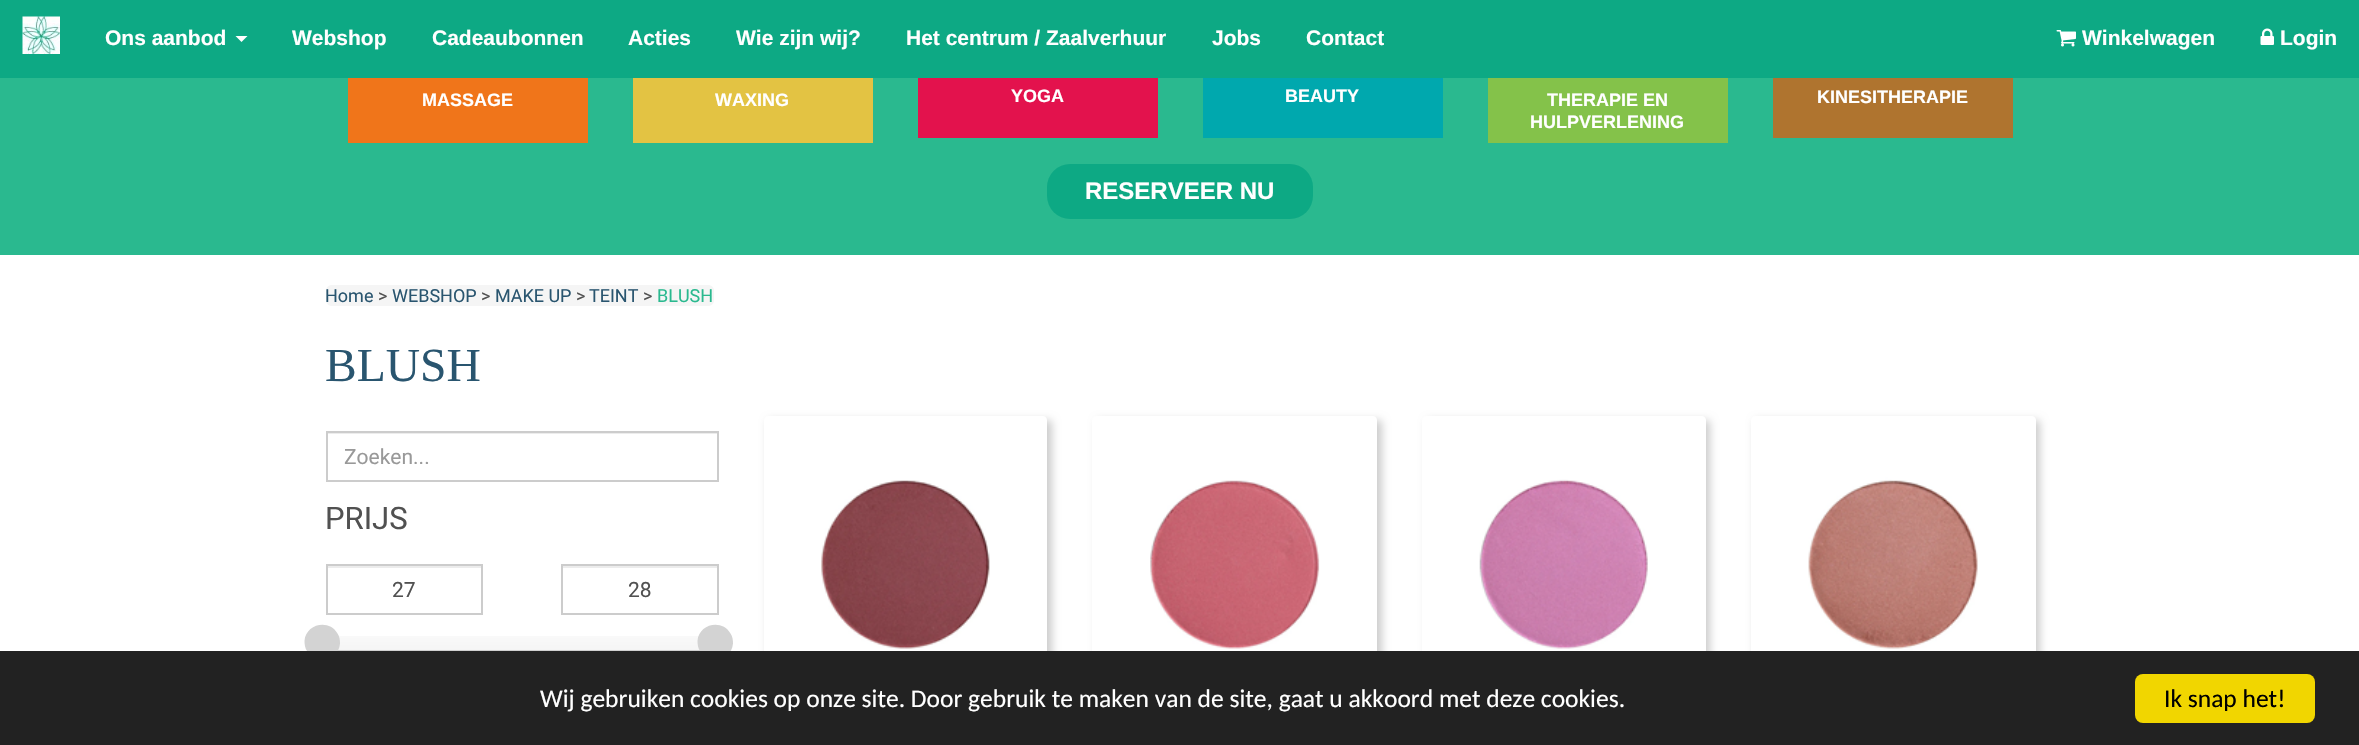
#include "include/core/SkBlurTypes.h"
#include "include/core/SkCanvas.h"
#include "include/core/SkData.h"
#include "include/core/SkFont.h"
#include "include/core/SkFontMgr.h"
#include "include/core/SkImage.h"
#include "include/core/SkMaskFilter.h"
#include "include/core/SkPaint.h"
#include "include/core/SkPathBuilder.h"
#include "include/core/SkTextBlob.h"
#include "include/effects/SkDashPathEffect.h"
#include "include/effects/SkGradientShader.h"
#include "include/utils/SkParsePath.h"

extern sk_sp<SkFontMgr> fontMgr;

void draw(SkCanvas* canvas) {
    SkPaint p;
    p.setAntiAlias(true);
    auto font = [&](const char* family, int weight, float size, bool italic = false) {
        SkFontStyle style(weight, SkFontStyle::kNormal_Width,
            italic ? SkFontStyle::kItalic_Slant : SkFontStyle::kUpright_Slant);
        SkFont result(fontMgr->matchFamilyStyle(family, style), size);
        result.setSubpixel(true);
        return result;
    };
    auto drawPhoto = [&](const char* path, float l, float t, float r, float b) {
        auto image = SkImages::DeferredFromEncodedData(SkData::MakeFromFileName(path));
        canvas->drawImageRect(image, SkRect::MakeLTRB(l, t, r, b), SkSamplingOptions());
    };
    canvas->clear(0xFFFFFFFF);
    p.setColor(0xFF0DA984);
    canvas->drawRect(SkRect::MakeLTRB(0, 0, 2359, 78), p);
    drawPhoto("media/1.png", 22, 16, 60, 54);
    auto font1 = font("Liberation Sans", 700, 21);
    p.setColor(0xFFFFFFFF);
    canvas->drawString("Ons aanbod", 105, 45, font1, p);
    canvas->drawPath(SkPathBuilder().moveTo(235.5f, 36).lineTo(247.5f, 36).lineTo(241.5f, 42).close().detach(), p);
    {
        const struct { const char* s; float x, y; } items[] = {
            {"Webshop", 292, 45},
            {"Cadeaubonnen", 432, 45},
            {"Acties", 628, 45},
            {"Wie zijn wij?", 736, 45},
            {"Het centrum / Zaalverhuur", 906, 45},
            {"Jobs", 1212, 45},
            {"Contact", 1306, 45},
        };
        for (auto [s, x, y] : items) {
            canvas->drawString(s, x, y, font1, p);
        }
    }
    drawPhoto("media/2.png", 2056, 30, 2076, 47);
    canvas->drawString("Winkelwagen", 2082, 45, font1, p);
    drawPhoto("media/3.png", 2260, 28, 2274, 45);
    canvas->drawString("Login", 2280, 45, font1, p);
    p.setColor(0xFF2AB98F);
    canvas->drawRect(SkRect::MakeLTRB(0, 78, 2359, 255), p);
    p.setColor(0xFFF0751A);
    canvas->drawRect(SkRect::MakeLTRB(348, 78, 588, 143), p);
    auto font2 = font("Liberation Sans", 700, 18);
    p.setColor(0xFFFFFFFF);
    canvas->drawString("MASSAGE", 422, 106, font2, p);
    p.setColor(0xFFE3C343);
    canvas->drawRect(SkRect::MakeLTRB(633, 78, 873, 143), p);
    p.setColor(0xFFFFFFFF);
    canvas->drawString("WAXING", 715, 106, font2, p);
    p.setColor(0xFFE3124D);
    canvas->drawRect(SkRect::MakeLTRB(918, 78, 1158, 138), p);
    p.setColor(0xFFFFFFFF);
    canvas->drawString("YOGA", 1011, 102, font2, p);
    p.setColor(0xFF00A8AE);
    canvas->drawRect(SkRect::MakeLTRB(1203, 78, 1443, 138), p);
    p.setColor(0xFFFFFFFF);
    canvas->drawString("BEAUTY", 1285, 102, font2, p);
    p.setColor(0xFF84C24A);
    canvas->drawRect(SkRect::MakeLTRB(1488, 78, 1728, 143), p);
    p.setColor(0xFFFFFFFF);
    canvas->drawString("THERAPIE EN", 1547, 106, font2, p);
    canvas->drawString("HULPVERLENING", 1530, 128, font2, p);
    p.setColor(0xFFAF742F);
    canvas->drawRect(SkRect::MakeLTRB(1773, 78, 2013, 138), p);
    p.setColor(0xFFFFFFFF);
    canvas->drawString("KINESITHERAPIE", 1817, 103, font2, p);
    p.setColor(0xFF0DA984);
    canvas->drawRoundRect(SkRect::MakeLTRB(1047, 164, 1313, 219), 23, 23, p);
    auto font3 = font("Liberation Sans", 700, 24);
    p.setColor(0xFFFFFFFF);
    canvas->drawString("RESERVEER NU", 1085, 199, font3, p);
    p.setColor(0xFFF5F5F5);
    canvas->drawPath(SkPathBuilder().moveTo(332, 285).lineTo(374, 285).lineTo(374, 306).lineTo(332, 306).cubicTo(328.5f, 306, 326, 303.5f, 326, 300).lineTo(326, 291).cubicTo(326, 287.5f, 328.5f, 285, 332, 285).close().detach(), p);
    auto font4 = font("Roboto", 400, 18);
    p.setColor(0xFF29556F);
    canvas->drawString("Home", 325, 302, font4, p);
    p.setColor(0xFFF5F5F5);
    canvas->drawRect(SkRect::MakeLTRB(374, 285, 657, 306), p);
    p.setColor(0xFF515151);
    canvas->drawString(">", 378, 302, font4, p);
    p.setColor(0xFF29556F);
    canvas->drawString("WEBSHOP", 392, 302, font4, p);
    p.setColor(0xFF515151);
    canvas->drawString(">", 481, 302, font4, p);
    p.setColor(0xFF29556F);
    canvas->drawString("MAKE UP", 495, 302, font4, p);
    p.setColor(0xFF515151);
    canvas->drawString(">", 576, 302, font4, p);
    p.setColor(0xFF29556F);
    canvas->drawString("TEINT", 589, 302, font4, p);
    p.setColor(0xFF515151);
    canvas->drawString(">", 643, 302, font4, p);
    p.setColor(0xFFF5F5F5);
    canvas->drawPath(SkPathBuilder().moveTo(657, 285).lineTo(708, 285).cubicTo(711.5f, 285, 714, 287.5f, 714, 291).lineTo(714, 300).cubicTo(714, 303.5f, 711.5f, 306, 708, 306).lineTo(657, 306).close().detach(), p);
    p.setColor(0xFF2AB98F);
    canvas->drawString("BLUSH", 657, 302, font4, p);
    auto font5 = font("Liberation Serif", 400, 47.5f);
    p.setColor(0xFF29556F);
    canvas->drawString("BLUSH", 325, 381, font5, p);
    p.setColor(0xFFECECEC);
    canvas->drawRect(SkRect::MakeLTRB(327, 433, 717, 434), p);
    p.setStyle(SkPaint::kStroke_Style);
    p.setStrokeWidth(2);
    p.setColor(0xFFCCCCCC);
    canvas->drawRect(SkRect::MakeLTRB(327, 432, 718, 481), p);
    auto font6 = font("Roboto", 400, 21);
    p.setStyle(SkPaint::kFill_Style);
    p.setColor(0xFF999999);
    canvas->drawString("Zoeken...", 344, 464, font6, p);
    auto font7 = font("Roboto", 400, 31);
    p.setColor(0xFF515151);
    canvas->drawString("PRIJS", 325, 529, font7, p);
    p.setColor(0xFFECECEC);
    canvas->drawRect(SkRect::MakeLTRB(327, 566, 482, 568), p);
    p.setStyle(SkPaint::kStroke_Style);
    p.setColor(0xFFCCCCCC);
    canvas->drawRect(SkRect::MakeLTRB(327, 565, 482, 614), p);
    p.setStyle(SkPaint::kFill_Style);
    p.setColor(0xFF515151);
    canvas->drawString("27", 392, 597, font6, p);
    p.setColor(0xFFECECEC);
    canvas->drawRect(SkRect::MakeLTRB(563, 566, 717, 568), p);
    p.setStyle(SkPaint::kStroke_Style);
    p.setColor(0xFFCCCCCC);
    canvas->drawRect(SkRect::MakeLTRB(562, 565, 718, 614), p);
    p.setStyle(SkPaint::kFill_Style);
    p.setColor(0xFF515151);
    canvas->drawString("28", 628, 597, font6, p);
    {
        const SkColor colors[] = {0xFFF9F9F9, 0xFFF5F5F5};
        const float stops[] = {0, 1};
        const SkPoint ends[] = {{522, 636}, {522, 651}};
        p.setShader(SkGradientShader::MakeLinear(ends, colors, stops, 2, SkTileMode::kClamp));
        p.setAlpha(255);
    }
    canvas->drawRect(SkRect::MakeLTRB(337, 636, 700, 651), p);
    p.setShader(nullptr);
    p.setColor(0x26000000);
    canvas->drawPath(SkPathBuilder().moveTo(326, 646).cubicTo(327, 648, 328, 650, 330, 651).lineTo(713, 651).cubicTo(717, 651, 719, 647, 719, 644).lineTo(719, 640).cubicTo(720, 644, 717, 649, 712, 650).lineTo(332, 650).cubicTo(329, 649, 327, 648, 326, 646).close().detach(), p);
    p.setColor(0xFFD3D3D3);
    canvas->drawPath(SkPathBuilder().moveTo(307, 651).cubicTo(305, 648, 304.5f, 644.5f, 304.5f, 641).cubicTo(305.5f, 624, 329, 618.5f, 337.5f, 633.5f).cubicTo(339.5f, 636.5f, 340, 640, 340, 643.5f).cubicTo(338.5f, 661, 315.5f, 666, 307, 651).close().detach(), p);
    canvas->drawPath(SkPathBuilder().moveTo(700, 651).cubicTo(698, 648, 697.5f, 644.5f, 697.5f, 641).cubicTo(698.5f, 624, 722, 618.5f, 730.5f, 633.5f).cubicTo(732.5f, 636.5f, 733, 640, 733, 643.5f).cubicTo(731.5f, 661, 708.5f, 666, 700, 651).close().detach(), p);
    canvas->save();
    canvas->clipPath(SkPathBuilder(SkPathFillType::kEvenOdd).moveTo(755, 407).lineTo(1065, 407).lineTo(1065, 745).lineTo(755, 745).close().moveTo(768, 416).lineTo(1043, 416).cubicTo(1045, 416, 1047, 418, 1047, 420).lineTo(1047, 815).cubicTo(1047, 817, 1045, 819, 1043, 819).lineTo(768, 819).cubicTo(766, 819, 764, 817, 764, 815).lineTo(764, 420).cubicTo(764, 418, 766, 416, 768, 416).close().detach(), true);
    p.setColor(0xFFCCCCCC);
    p.setMaskFilter(SkMaskFilter::MakeBlur(kNormal_SkBlurStyle, 4));
    canvas->drawRoundRect(SkRect::MakeLTRB(768, 420, 1052, 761), 4, 4, p);
    p.setMaskFilter(nullptr);
    canvas->restore();
    drawPhoto("media/4.png", 821, 480, 990, 649);
    canvas->save();
    canvas->clipPath(SkPathBuilder(SkPathFillType::kEvenOdd).moveTo(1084, 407).lineTo(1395, 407).lineTo(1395, 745).lineTo(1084, 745).close().moveTo(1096, 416).lineTo(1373, 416).cubicTo(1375, 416, 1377, 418, 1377, 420).lineTo(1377, 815).cubicTo(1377, 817, 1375, 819, 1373, 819).lineTo(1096, 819).cubicTo(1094, 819, 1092, 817, 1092, 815).lineTo(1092, 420).cubicTo(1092, 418, 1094, 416, 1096, 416).close().detach(), true);
    p.setMaskFilter(SkMaskFilter::MakeBlur(kNormal_SkBlurStyle, 4));
    canvas->drawRoundRect(SkRect::MakeLTRB(1097, 420, 1382, 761), 4, 4, p);
    p.setMaskFilter(nullptr);
    canvas->restore();
    drawPhoto("media/5.png", 1150, 480, 1320, 649);
    canvas->save();
    canvas->clipPath(SkPathBuilder(SkPathFillType::kEvenOdd).moveTo(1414, 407).lineTo(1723, 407).lineTo(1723, 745).lineTo(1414, 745).close().moveTo(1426, 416).lineTo(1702, 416).cubicTo(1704, 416, 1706, 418, 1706, 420).lineTo(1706, 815).cubicTo(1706, 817, 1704, 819, 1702, 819).lineTo(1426, 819).cubicTo(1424, 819, 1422, 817, 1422, 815).lineTo(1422, 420).cubicTo(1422, 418, 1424, 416, 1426, 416).close().detach(), true);
    p.setMaskFilter(SkMaskFilter::MakeBlur(kNormal_SkBlurStyle, 4));
    canvas->drawRoundRect(SkRect::MakeLTRB(1427, 420, 1710, 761), 4, 4, p);
    p.setMaskFilter(nullptr);
    canvas->restore();
    drawPhoto("media/6.png", 1479, 424, 1706, 651);
    canvas->save();
    canvas->clipPath(SkPathBuilder(SkPathFillType::kEvenOdd).moveTo(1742, 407).lineTo(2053, 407).lineTo(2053, 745).lineTo(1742, 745).close().moveTo(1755, 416).lineTo(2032, 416).cubicTo(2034, 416, 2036, 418, 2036, 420).lineTo(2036, 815).cubicTo(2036, 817, 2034, 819, 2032, 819).lineTo(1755, 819).cubicTo(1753, 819, 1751, 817, 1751, 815).lineTo(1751, 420).cubicTo(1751, 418, 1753, 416, 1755, 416).close().detach(), true);
    p.setMaskFilter(SkMaskFilter::MakeBlur(kNormal_SkBlurStyle, 4));
    canvas->drawRoundRect(SkRect::MakeLTRB(1755, 420, 2040, 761), 4, 4, p);
    p.setMaskFilter(nullptr);
    canvas->restore();
    drawPhoto("media/7.png", 1808, 424, 2036, 651);
    p.setColor(0xFF222222);
    canvas->drawRect(SkRect::MakeLTRB(0, 651, 2359, 745), p);
    auto font8 = font("Carlito", 400, 25.5f);
    p.setColor(0xFFFFFFFF);
    canvas->drawString("Wij gebruiken cookies op onze site. Door gebruik te maken van de site, gaat u akkoord met deze cookies.", 540, 707, font8, p);
    p.setColor(0xFFF1D600);
    canvas->drawRoundRect(SkRect::MakeLTRB(2135, 674, 2315, 723), 8, 8, p);
    p.setColor(0xFF000000);
    canvas->drawString("Ik snap het!", 2164, 707, font8, p);
}
